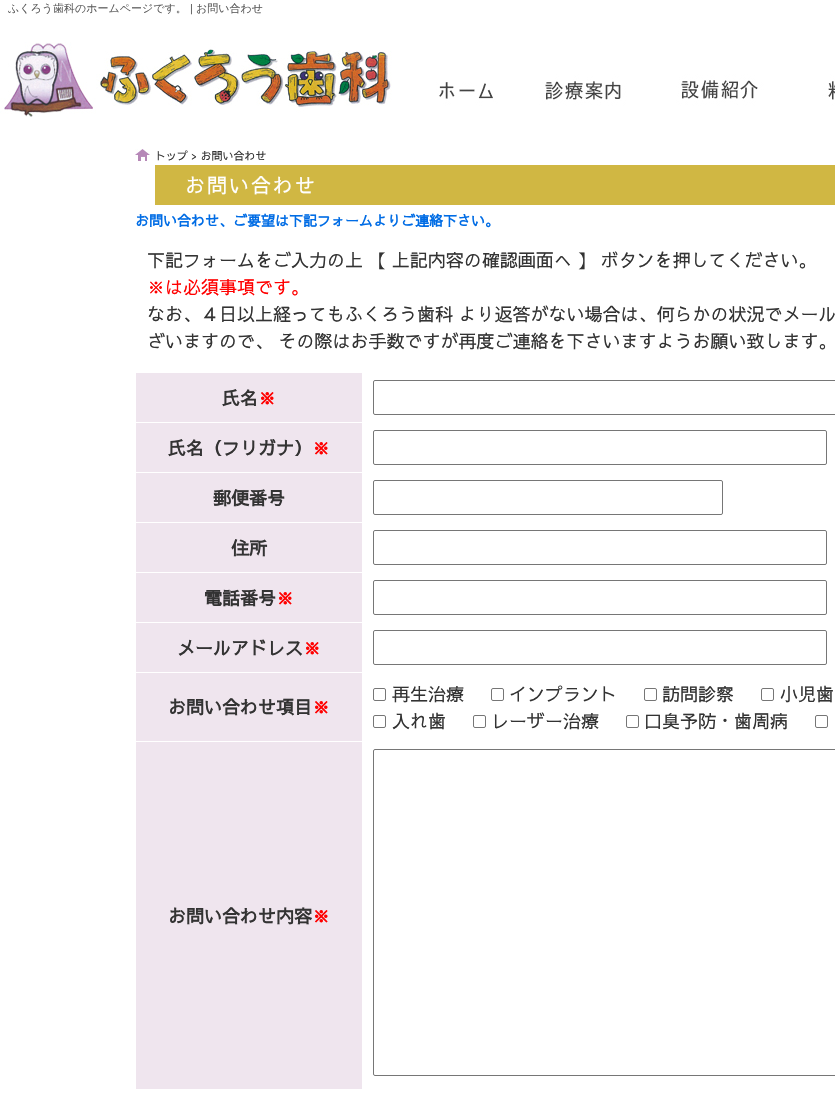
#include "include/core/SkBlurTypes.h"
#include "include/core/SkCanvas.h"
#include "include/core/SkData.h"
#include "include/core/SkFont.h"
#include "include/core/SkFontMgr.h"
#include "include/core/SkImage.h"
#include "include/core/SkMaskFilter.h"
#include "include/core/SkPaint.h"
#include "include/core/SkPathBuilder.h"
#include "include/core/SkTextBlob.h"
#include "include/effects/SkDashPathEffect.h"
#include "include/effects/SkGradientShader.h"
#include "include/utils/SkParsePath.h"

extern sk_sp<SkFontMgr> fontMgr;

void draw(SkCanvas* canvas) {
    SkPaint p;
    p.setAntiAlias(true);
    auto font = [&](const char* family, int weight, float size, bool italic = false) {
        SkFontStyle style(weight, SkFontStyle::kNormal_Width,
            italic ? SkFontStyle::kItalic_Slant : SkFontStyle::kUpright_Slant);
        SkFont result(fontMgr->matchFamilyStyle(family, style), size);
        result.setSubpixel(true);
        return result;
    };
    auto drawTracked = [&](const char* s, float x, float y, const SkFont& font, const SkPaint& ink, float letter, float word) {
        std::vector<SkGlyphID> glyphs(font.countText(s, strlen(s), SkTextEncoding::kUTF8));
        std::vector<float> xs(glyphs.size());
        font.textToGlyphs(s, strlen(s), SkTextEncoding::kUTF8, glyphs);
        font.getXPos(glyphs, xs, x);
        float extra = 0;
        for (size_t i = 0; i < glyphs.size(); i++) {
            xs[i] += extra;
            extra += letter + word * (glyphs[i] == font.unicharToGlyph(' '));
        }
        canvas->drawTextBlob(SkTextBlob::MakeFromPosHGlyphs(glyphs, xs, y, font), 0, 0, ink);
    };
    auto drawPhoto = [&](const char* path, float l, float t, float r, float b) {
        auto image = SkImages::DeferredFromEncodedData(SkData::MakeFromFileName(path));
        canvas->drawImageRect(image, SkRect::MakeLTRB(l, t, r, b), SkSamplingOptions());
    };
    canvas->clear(0xFFFFFFFF);
    auto font1 = font("WenQuanYi Zen Hei", 500, 11);
    p.setColor(0xFF5D5D5D);
    canvas->drawString("ふくろう歯科のホームページです。", 8, 12, font1, p);
    auto font2 = font("Liberation Sans", 400, 11);
    canvas->drawString("|", 190, 12, font2, p);
    canvas->drawString("お問い合わせ", 196, 12, font1, p);
    drawPhoto("media/1.png", 0, 18, 419, 117);
    drawPhoto("media/2.png", 419, 18, 515, 115);
    drawPhoto("media/3.png", 515, 18, 652, 115);
    drawPhoto("media/4.png", 652, 18, 789, 115);
    drawPhoto("media/5.png", 789, 18, 835, 115);
    drawPhoto("media/6.png", 135, 149, 150, 161);
    auto font3 = font("Sawarabi Gothic", 400, 11);
    p.setColor(0xFF333333);
    canvas->drawString("トップ > お問い合わせ", 155, 160, font3, p);
    p.setColor(0xFFD0B743);
    canvas->drawRect(SkRect::MakeLTRB(155, 165, 835, 205), p);
    auto font4 = font("Sawarabi Gothic", 400, 20);
    p.setColor(0xFFFFFFFF);
    drawTracked("お問い合わせ", 185, 193, font4, p, 2, 0);
    auto font5 = font("Sawarabi Gothic", 700, 14);
    p.setColor(0xFF006CE5);
    canvas->drawString("お問い合わせ、ご要望は下記フォームよりご連絡下さい。", 135, 226, font5, p);
    auto font6 = font("Sawarabi Gothic", 400, 18);
    p.setColor(0xFF333333);
    canvas->drawString("下記フォームをご入力の上 【 上記内容の確認画面へ 】 ボタンを押してください。", 147, 267, font6, p);
    p.setColor(0xFFFF0000);
    canvas->drawString("※は必須事項です。", 147, 294, font6, p);
    p.setColor(0xFF333333);
    canvas->drawString("なお、４日以上経ってもふくろう歯科 より返答がない場合は、何らかの状況でメール", 147, 321, font6, p);
    canvas->drawString("ざいますので、 その際はお手数ですが再度ご連絡を下さいますようお願い致します。", 147, 348, font6, p);
    p.setColor(0xFFEFE5EE);
    canvas->drawRect(SkRect::MakeLTRB(136, 373, 362, 422), p);
    auto font7 = font("Sawarabi Gothic", 700, 18);
    p.setColor(0xFF333333);
    canvas->drawString("氏名", 222, 405, font7, p);
    p.setColor(0xFFFF0000);
    canvas->drawString("※", 258, 405, font7, p);
    p.setStyle(SkPaint::kStroke_Style);
    p.setStrokeWidth(1);
    p.setColor(0xFF767676);
    canvas->drawRoundRect(SkRect::MakeLTRB(373.5f, 380.5f, 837.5f, 414.5f), 1.5f, 1.5f, p);
    p.setStyle(SkPaint::kFill_Style);
    p.setColor(0xFFEFE5EE);
    canvas->drawRect(SkRect::MakeLTRB(136, 423, 362, 472), p);
    p.setColor(0xFF333333);
    canvas->drawString("氏名（フリガナ）", 168, 455, font7, p);
    p.setColor(0xFFFF0000);
    canvas->drawString("※", 312, 455, font7, p);
    p.setStyle(SkPaint::kStroke_Style);
    p.setColor(0xFF767676);
    canvas->drawRoundRect(SkRect::MakeLTRB(373.5f, 430.5f, 826.5f, 464.5f), 1.5f, 1.5f, p);
    p.setStyle(SkPaint::kFill_Style);
    p.setColor(0xFFEFE5EE);
    canvas->drawRect(SkRect::MakeLTRB(136, 473, 362, 522), p);
    p.setColor(0xFF333333);
    canvas->drawString("郵便番号", 213, 505, font7, p);
    p.setStyle(SkPaint::kStroke_Style);
    p.setColor(0xFF767676);
    canvas->drawRoundRect(SkRect::MakeLTRB(373.5f, 480.5f, 722.5f, 514.5f), 1.5f, 1.5f, p);
    p.setStyle(SkPaint::kFill_Style);
    p.setColor(0xFFEFE5EE);
    canvas->drawRect(SkRect::MakeLTRB(136, 523, 362, 572), p);
    p.setColor(0xFF333333);
    canvas->drawString("住所", 231, 555, font7, p);
    p.setStyle(SkPaint::kStroke_Style);
    p.setColor(0xFF767676);
    canvas->drawRoundRect(SkRect::MakeLTRB(373.5f, 530.5f, 826.5f, 564.5f), 1.5f, 1.5f, p);
    p.setStyle(SkPaint::kFill_Style);
    p.setColor(0xFFEFE5EE);
    canvas->drawRect(SkRect::MakeLTRB(136, 573, 362, 622), p);
    p.setColor(0xFF333333);
    canvas->drawString("電話番号", 204, 605, font7, p);
    p.setColor(0xFFFF0000);
    canvas->drawString("※", 276, 605, font7, p);
    p.setStyle(SkPaint::kStroke_Style);
    p.setColor(0xFF767676);
    canvas->drawRoundRect(SkRect::MakeLTRB(373.5f, 580.5f, 826.5f, 614.5f), 1.5f, 1.5f, p);
    p.setStyle(SkPaint::kFill_Style);
    p.setColor(0xFFEFE5EE);
    canvas->drawRect(SkRect::MakeLTRB(136, 623, 362, 672), p);
    p.setColor(0xFF333333);
    canvas->drawString("メールアドレス", 177, 655, font7, p);
    p.setColor(0xFFFF0000);
    canvas->drawString("※", 303, 655, font7, p);
    p.setStyle(SkPaint::kStroke_Style);
    p.setColor(0xFF767676);
    canvas->drawRoundRect(SkRect::MakeLTRB(373.5f, 630.5f, 826.5f, 664.5f), 1.5f, 1.5f, p);
    p.setStyle(SkPaint::kFill_Style);
    p.setColor(0xFFEFE5EE);
    canvas->drawRect(SkRect::MakeLTRB(136, 673, 362, 741), p);
    p.setColor(0xFF333333);
    canvas->drawString("お問い合わせ項目", 168, 714, font7, p);
    p.setColor(0xFFFF0000);
    canvas->drawString("※", 312, 714, font7, p);
    p.setStyle(SkPaint::kStroke_Style);
    p.setColor(0xFF767676);
    canvas->drawRoundRect(SkRect::MakeLTRB(373.5f, 688.5f, 385.5f, 700.5f), 1.5f, 1.5f, p);
    p.setStyle(SkPaint::kFill_Style);
    p.setColor(0xFF333333);
    canvas->drawString("再生治療", 392, 701, font6, p);
    p.setStyle(SkPaint::kStroke_Style);
    p.setColor(0xFF767676);
    canvas->drawRoundRect(SkRect::MakeLTRB(491.5f, 688.5f, 503.5f, 700.5f), 1.5f, 1.5f, p);
    p.setStyle(SkPaint::kFill_Style);
    p.setColor(0xFF333333);
    canvas->drawString("インプラント", 509, 701, font6, p);
    p.setStyle(SkPaint::kStroke_Style);
    p.setColor(0xFF767676);
    canvas->drawRoundRect(SkRect::MakeLTRB(644.5f, 688.5f, 656.5f, 700.5f), 1.5f, 1.5f, p);
    p.setStyle(SkPaint::kFill_Style);
    p.setColor(0xFF333333);
    canvas->drawString("訪問診察", 662, 701, font6, p);
    p.setStyle(SkPaint::kStroke_Style);
    p.setColor(0xFF767676);
    canvas->drawRoundRect(SkRect::MakeLTRB(761.5f, 688.5f, 773.5f, 700.5f), 1.5f, 1.5f, p);
    p.setStyle(SkPaint::kFill_Style);
    p.setColor(0xFF333333);
    canvas->drawString("小児歯", 780, 701, font6, p);
    p.setStyle(SkPaint::kStroke_Style);
    p.setColor(0xFF767676);
    canvas->drawRoundRect(SkRect::MakeLTRB(373.5f, 715.5f, 385.5f, 727.5f), 1.5f, 1.5f, p);
    p.setStyle(SkPaint::kFill_Style);
    p.setColor(0xFF333333);
    canvas->drawString("入れ歯", 392, 728, font6, p);
    p.setStyle(SkPaint::kStroke_Style);
    p.setColor(0xFF767676);
    canvas->drawRoundRect(SkRect::MakeLTRB(473.5f, 715.5f, 485.5f, 727.5f), 1.5f, 1.5f, p);
    p.setStyle(SkPaint::kFill_Style);
    p.setColor(0xFF333333);
    canvas->drawString("レーザー治療", 491, 728, font6, p);
    p.setStyle(SkPaint::kStroke_Style);
    p.setColor(0xFF767676);
    canvas->drawRoundRect(SkRect::MakeLTRB(626.5f, 715.5f, 638.5f, 727.5f), 1.5f, 1.5f, p);
    p.setStyle(SkPaint::kFill_Style);
    p.setColor(0xFF333333);
    canvas->drawString("口臭予防・歯周病", 644, 728, font6, p);
    p.setStyle(SkPaint::kStroke_Style);
    p.setColor(0xFF767676);
    canvas->drawRoundRect(SkRect::MakeLTRB(815.5f, 715.5f, 827.5f, 727.5f), 1.5f, 1.5f, p);
    p.setStyle(SkPaint::kFill_Style);
    p.setColor(0xFFEFE5EE);
    canvas->drawRect(SkRect::MakeLTRB(136, 742, 362, 1089), p);
    p.setColor(0xFF333333);
    canvas->drawString("お問い合わせ内容", 168, 923, font7, p);
    p.setColor(0xFFFF0000);
    canvas->drawString("※", 312, 923, font7, p);
    p.setStyle(SkPaint::kStroke_Style);
    p.setColor(0xFF767676);
    canvas->drawRoundRect(SkRect::MakeLTRB(373.5f, 749.5f, 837.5f, 1075.5f), 1.5f, 1.5f, p);
}
